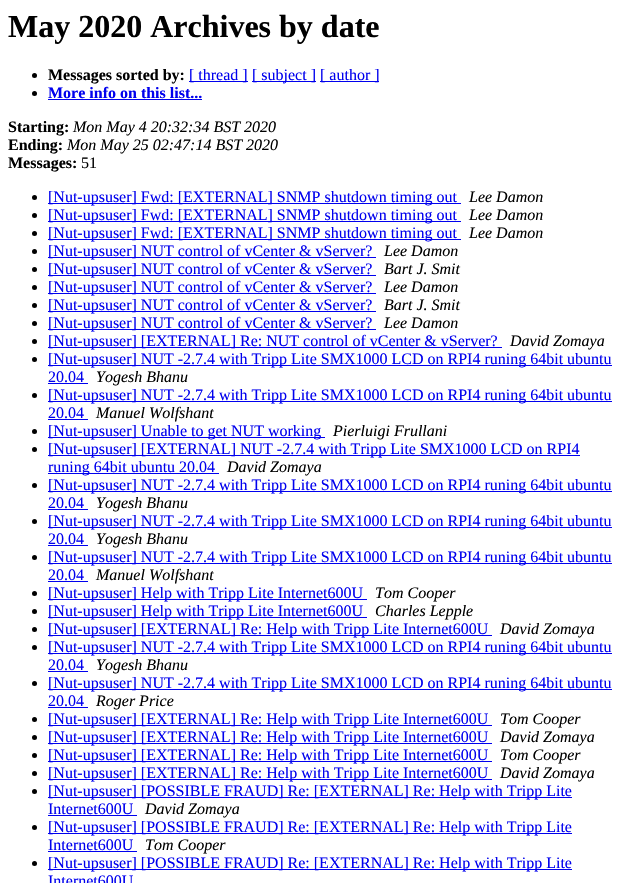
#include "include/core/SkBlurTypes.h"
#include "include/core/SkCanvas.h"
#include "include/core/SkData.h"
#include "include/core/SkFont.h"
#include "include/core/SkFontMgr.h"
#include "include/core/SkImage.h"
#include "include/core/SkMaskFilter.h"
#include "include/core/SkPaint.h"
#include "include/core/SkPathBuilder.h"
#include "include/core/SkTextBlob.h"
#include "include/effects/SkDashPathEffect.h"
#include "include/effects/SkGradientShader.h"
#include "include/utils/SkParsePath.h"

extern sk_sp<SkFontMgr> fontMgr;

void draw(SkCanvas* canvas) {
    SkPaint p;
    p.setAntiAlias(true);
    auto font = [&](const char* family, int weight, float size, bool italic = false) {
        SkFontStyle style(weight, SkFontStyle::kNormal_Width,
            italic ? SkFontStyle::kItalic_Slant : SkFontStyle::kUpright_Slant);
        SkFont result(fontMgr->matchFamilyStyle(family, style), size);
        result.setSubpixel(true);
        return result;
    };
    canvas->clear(0xFFFFFFFF);
    auto font1 = font("Liberation Serif", 700, 32);
    p.setColor(0xFF000000);
    canvas->drawString("May 2020 Archives by date", 8, 37, font1, p);
    canvas->drawCircle(34.5f, 75.5f, 2.5f, p);
    auto font2 = font("Liberation Serif", 700, 16);
    canvas->drawString("Messages sorted by:", 48, 80, font2, p);
    p.setColor(0xFF0000EE);
    canvas->drawRect(SkRect::MakeLTRB(189, 81, 248, 82), p);
    auto font3 = font("Liberation Serif", 400, 16);
    canvas->drawString("[ thread ]", 189, 80, font3, p);
    canvas->drawRect(SkRect::MakeLTRB(252, 81, 316, 82), p);
    canvas->drawString("[ subject ]", 252, 80, font3, p);
    canvas->drawRect(SkRect::MakeLTRB(320, 81, 379, 82), p);
    canvas->drawString("[ author ]", 320, 80, font3, p);
    p.setColor(0xFF000000);
    canvas->drawCircle(34.5f, 93.5f, 2.5f, p);
    p.setColor(0xFF0000EE);
    canvas->drawString("More info on this list...", 48, 98, font2, p);
    canvas->drawRect(SkRect::MakeLTRB(48, 99, 202, 100), p);
    p.setColor(0xFF000000);
    canvas->drawString("Starting:", 8, 132, font2, p);
    auto font4 = font("Liberation Serif", 400, 16, true);
    canvas->drawString("Mon May 4 20:32:34 BST 2020", 73, 132, font4, p);
    canvas->drawString("Ending:", 8, 150, font2, p);
    canvas->drawString("Mon May 25 02:47:14 BST 2020", 67, 150, font4, p);
    canvas->drawString("Messages:", 8, 168, font2, p);
    canvas->drawString("51", 81, 168, font3, p);
    canvas->drawCircle(34.5f, 197.5f, 2.5f, p);
    p.setColor(0xFF0000EE);
    canvas->drawRect(SkRect::MakeLTRB(48, 203, 461, 204), p);
    canvas->drawString("[Nut-upsuser] Fwd: [EXTERNAL] SNMP shutdown timing out", 48, 202, font3, p);
    p.setColor(0xFF000000);
    canvas->drawString("Lee Damon", 469, 202, font4, p);
    canvas->drawCircle(34.5f, 215.5f, 2.5f, p);
    p.setColor(0xFF0000EE);
    canvas->drawRect(SkRect::MakeLTRB(48, 221, 461, 222), p);
    canvas->drawString("[Nut-upsuser] Fwd: [EXTERNAL] SNMP shutdown timing out", 48, 220, font3, p);
    p.setColor(0xFF000000);
    canvas->drawString("Lee Damon", 469, 220, font4, p);
    canvas->drawCircle(34.5f, 233.5f, 2.5f, p);
    p.setColor(0xFF0000EE);
    canvas->drawRect(SkRect::MakeLTRB(48, 239, 461, 240), p);
    canvas->drawString("[Nut-upsuser] Fwd: [EXTERNAL] SNMP shutdown timing out", 48, 238, font3, p);
    p.setColor(0xFF000000);
    canvas->drawString("Lee Damon", 469, 238, font4, p);
    canvas->drawCircle(34.5f, 251.5f, 2.5f, p);
    p.setColor(0xFF0000EE);
    canvas->drawRect(SkRect::MakeLTRB(48, 257, 376, 258), p);
    canvas->drawString("[Nut-upsuser] NUT control of vCenter & vServer?", 48, 256, font3, p);
    p.setColor(0xFF000000);
    canvas->drawString("Lee Damon", 384, 256, font4, p);
    canvas->drawCircle(34.5f, 269.5f, 2.5f, p);
    p.setColor(0xFF0000EE);
    canvas->drawRect(SkRect::MakeLTRB(48, 275, 376, 276), p);
    canvas->drawString("[Nut-upsuser] NUT control of vCenter & vServer?", 48, 274, font3, p);
    p.setColor(0xFF000000);
    canvas->drawString("Bart J. Smit", 384, 274, font4, p);
    canvas->drawCircle(34.5f, 287.5f, 2.5f, p);
    p.setColor(0xFF0000EE);
    canvas->drawRect(SkRect::MakeLTRB(48, 293, 376, 294), p);
    canvas->drawString("[Nut-upsuser] NUT control of vCenter & vServer?", 48, 292, font3, p);
    p.setColor(0xFF000000);
    canvas->drawString("Lee Damon", 384, 292, font4, p);
    canvas->drawCircle(34.5f, 305.5f, 2.5f, p);
    p.setColor(0xFF0000EE);
    canvas->drawRect(SkRect::MakeLTRB(48, 311, 376, 312), p);
    canvas->drawString("[Nut-upsuser] NUT control of vCenter & vServer?", 48, 310, font3, p);
    p.setColor(0xFF000000);
    canvas->drawString("Bart J. Smit", 384, 310, font4, p);
    canvas->drawCircle(34.5f, 323.5f, 2.5f, p);
    p.setColor(0xFF0000EE);
    canvas->drawRect(SkRect::MakeLTRB(48, 329, 376, 330), p);
    canvas->drawString("[Nut-upsuser] NUT control of vCenter & vServer?", 48, 328, font3, p);
    p.setColor(0xFF000000);
    canvas->drawString("Lee Damon", 384, 328, font4, p);
    canvas->drawCircle(34.5f, 341.5f, 2.5f, p);
    p.setColor(0xFF0000EE);
    canvas->drawRect(SkRect::MakeLTRB(48, 347, 502, 348), p);
    canvas->drawString("[Nut-upsuser] [EXTERNAL] Re: NUT control of vCenter & vServer?", 48, 346, font3, p);
    p.setColor(0xFF000000);
    canvas->drawString("David Zomaya", 510, 346, font4, p);
    canvas->drawCircle(34.5f, 359.5f, 2.5f, p);
    p.setColor(0xFF0000EE);
    canvas->drawRect(SkRect::MakeLTRB(48, 365, 612, 366), p);
    canvas->drawString("[Nut-upsuser] NUT -2.7.4 with Tripp Lite SMX1000 LCD on RPI4 runing 64bit ubuntu", 48, 364, font3, p);
    canvas->drawString("20.04", 48, 382, font3, p);
    canvas->drawRect(SkRect::MakeLTRB(48, 383, 88, 384), p);
    p.setColor(0xFF000000);
    canvas->drawString("Yogesh Bhanu", 96, 382, font4, p);
    canvas->drawCircle(34.5f, 395.5f, 2.5f, p);
    p.setColor(0xFF0000EE);
    canvas->drawRect(SkRect::MakeLTRB(48, 401, 612, 402), p);
    canvas->drawString("[Nut-upsuser] NUT -2.7.4 with Tripp Lite SMX1000 LCD on RPI4 runing 64bit ubuntu", 48, 400, font3, p);
    canvas->drawString("20.04", 48, 418, font3, p);
    canvas->drawRect(SkRect::MakeLTRB(48, 419, 88, 420), p);
    p.setColor(0xFF000000);
    canvas->drawString("Manuel Wolfshant", 96, 418, font4, p);
    canvas->drawCircle(34.5f, 431.5f, 2.5f, p);
    p.setColor(0xFF0000EE);
    canvas->drawRect(SkRect::MakeLTRB(48, 437, 325, 438), p);
    canvas->drawString("[Nut-upsuser] Unable to get NUT working", 48, 436, font3, p);
    p.setColor(0xFF000000);
    canvas->drawString("Pierluigi Frullani", 333, 436, font4, p);
    canvas->drawCircle(34.5f, 449.5f, 2.5f, p);
    p.setColor(0xFF0000EE);
    canvas->drawRect(SkRect::MakeLTRB(48, 455, 580, 456), p);
    canvas->drawString("[Nut-upsuser] [EXTERNAL] NUT -2.7.4 with Tripp Lite SMX1000 LCD on RPI4", 48, 454, font3, p);
    canvas->drawRect(SkRect::MakeLTRB(48, 473, 219, 474), p);
    canvas->drawString("runing 64bit ubuntu 20.04", 48, 472, font3, p);
    p.setColor(0xFF000000);
    canvas->drawString("David Zomaya", 227, 472, font4, p);
    canvas->drawCircle(34.5f, 485.5f, 2.5f, p);
    p.setColor(0xFF0000EE);
    canvas->drawRect(SkRect::MakeLTRB(48, 491, 612, 492), p);
    canvas->drawString("[Nut-upsuser] NUT -2.7.4 with Tripp Lite SMX1000 LCD on RPI4 runing 64bit ubuntu", 48, 490, font3, p);
    canvas->drawString("20.04", 48, 508, font3, p);
    canvas->drawRect(SkRect::MakeLTRB(48, 509, 88, 510), p);
    p.setColor(0xFF000000);
    canvas->drawString("Yogesh Bhanu", 96, 508, font4, p);
    canvas->drawCircle(34.5f, 521.5f, 2.5f, p);
    p.setColor(0xFF0000EE);
    canvas->drawRect(SkRect::MakeLTRB(48, 527, 612, 528), p);
    canvas->drawString("[Nut-upsuser] NUT -2.7.4 with Tripp Lite SMX1000 LCD on RPI4 runing 64bit ubuntu", 48, 526, font3, p);
    canvas->drawString("20.04", 48, 544, font3, p);
    canvas->drawRect(SkRect::MakeLTRB(48, 545, 88, 546), p);
    p.setColor(0xFF000000);
    canvas->drawString("Yogesh Bhanu", 96, 544, font4, p);
    canvas->drawCircle(34.5f, 557.5f, 2.5f, p);
    p.setColor(0xFF0000EE);
    canvas->drawRect(SkRect::MakeLTRB(48, 563, 612, 564), p);
    canvas->drawString("[Nut-upsuser] NUT -2.7.4 with Tripp Lite SMX1000 LCD on RPI4 runing 64bit ubuntu", 48, 562, font3, p);
    canvas->drawString("20.04", 48, 580, font3, p);
    canvas->drawRect(SkRect::MakeLTRB(48, 581, 88, 582), p);
    p.setColor(0xFF000000);
    canvas->drawString("Manuel Wolfshant", 96, 580, font4, p);
    canvas->drawCircle(34.5f, 593.5f, 2.5f, p);
    p.setColor(0xFF0000EE);
    canvas->drawRect(SkRect::MakeLTRB(48, 599, 367, 600), p);
    canvas->drawString("[Nut-upsuser] Help with Tripp Lite Internet600U", 48, 598, font3, p);
    p.setColor(0xFF000000);
    canvas->drawString("Tom Cooper", 375, 598, font4, p);
    canvas->drawCircle(34.5f, 611.5f, 2.5f, p);
    p.setColor(0xFF0000EE);
    canvas->drawRect(SkRect::MakeLTRB(48, 617, 367, 618), p);
    canvas->drawString("[Nut-upsuser] Help with Tripp Lite Internet600U", 48, 616, font3, p);
    p.setColor(0xFF000000);
    canvas->drawString("Charles Lepple", 375, 616, font4, p);
    canvas->drawCircle(34.5f, 629.5f, 2.5f, p);
    p.setColor(0xFF0000EE);
    canvas->drawRect(SkRect::MakeLTRB(48, 635, 492, 636), p);
    canvas->drawString("[Nut-upsuser] [EXTERNAL] Re: Help with Tripp Lite Internet600U", 48, 634, font3, p);
    p.setColor(0xFF000000);
    canvas->drawString("David Zomaya", 500, 634, font4, p);
    canvas->drawCircle(34.5f, 647.5f, 2.5f, p);
    p.setColor(0xFF0000EE);
    canvas->drawRect(SkRect::MakeLTRB(48, 653, 612, 654), p);
    canvas->drawString("[Nut-upsuser] NUT -2.7.4 with Tripp Lite SMX1000 LCD on RPI4 runing 64bit ubuntu", 48, 652, font3, p);
    canvas->drawString("20.04", 48, 670, font3, p);
    canvas->drawRect(SkRect::MakeLTRB(48, 671, 88, 672), p);
    p.setColor(0xFF000000);
    canvas->drawString("Yogesh Bhanu", 96, 670, font4, p);
    canvas->drawCircle(34.5f, 683.5f, 2.5f, p);
    p.setColor(0xFF0000EE);
    canvas->drawRect(SkRect::MakeLTRB(48, 689, 612, 690), p);
    canvas->drawString("[Nut-upsuser] NUT -2.7.4 with Tripp Lite SMX1000 LCD on RPI4 runing 64bit ubuntu", 48, 688, font3, p);
    canvas->drawString("20.04", 48, 706, font3, p);
    canvas->drawRect(SkRect::MakeLTRB(48, 707, 88, 708), p);
    p.setColor(0xFF000000);
    canvas->drawString("Roger Price", 96, 706, font4, p);
    canvas->drawCircle(34.5f, 719.5f, 2.5f, p);
    p.setColor(0xFF0000EE);
    canvas->drawRect(SkRect::MakeLTRB(48, 725, 492, 726), p);
    canvas->drawString("[Nut-upsuser] [EXTERNAL] Re: Help with Tripp Lite Internet600U", 48, 724, font3, p);
    p.setColor(0xFF000000);
    canvas->drawString("Tom Cooper", 500, 724, font4, p);
    canvas->drawCircle(34.5f, 737.5f, 2.5f, p);
    p.setColor(0xFF0000EE);
    canvas->drawRect(SkRect::MakeLTRB(48, 743, 492, 744), p);
    canvas->drawString("[Nut-upsuser] [EXTERNAL] Re: Help with Tripp Lite Internet600U", 48, 742, font3, p);
    p.setColor(0xFF000000);
    canvas->drawString("David Zomaya", 500, 742, font4, p);
    canvas->drawCircle(34.5f, 755.5f, 2.5f, p);
    p.setColor(0xFF0000EE);
    canvas->drawRect(SkRect::MakeLTRB(48, 761, 492, 762), p);
    canvas->drawString("[Nut-upsuser] [EXTERNAL] Re: Help with Tripp Lite Internet600U", 48, 760, font3, p);
    p.setColor(0xFF000000);
    canvas->drawString("Tom Cooper", 500, 760, font4, p);
    canvas->drawCircle(34.5f, 773.5f, 2.5f, p);
    p.setColor(0xFF0000EE);
    canvas->drawRect(SkRect::MakeLTRB(48, 779, 492, 780), p);
    canvas->drawString("[Nut-upsuser] [EXTERNAL] Re: Help with Tripp Lite Internet600U", 48, 778, font3, p);
    p.setColor(0xFF000000);
    canvas->drawString("David Zomaya", 500, 778, font4, p);
    canvas->drawCircle(34.5f, 791.5f, 2.5f, p);
    p.setColor(0xFF0000EE);
    canvas->drawRect(SkRect::MakeLTRB(48, 797, 572, 798), p);
    canvas->drawString("[Nut-upsuser] [POSSIBLE FRAUD] Re: [EXTERNAL] Re: Help with Tripp Lite", 48, 796, font3, p);
    canvas->drawString("Internet600U", 48, 814, font3, p);
    canvas->drawRect(SkRect::MakeLTRB(48, 815, 137, 816), p);
    p.setColor(0xFF000000);
    canvas->drawString("David Zomaya", 145, 814, font4, p);
    canvas->drawCircle(34.5f, 827.5f, 2.5f, p);
    p.setColor(0xFF0000EE);
    canvas->drawRect(SkRect::MakeLTRB(48, 833, 572, 834), p);
    canvas->drawString("[Nut-upsuser] [POSSIBLE FRAUD] Re: [EXTERNAL] Re: Help with Tripp Lite", 48, 832, font3, p);
    canvas->drawString("Internet600U", 48, 850, font3, p);
    canvas->drawRect(SkRect::MakeLTRB(48, 851, 137, 852), p);
    p.setColor(0xFF000000);
    canvas->drawString("Tom Cooper", 145, 850, font4, p);
    canvas->drawCircle(34.5f, 863.5f, 2.5f, p);
    p.setColor(0xFF0000EE);
    canvas->drawRect(SkRect::MakeLTRB(48, 869, 572, 870), p);
    canvas->drawString("[Nut-upsuser] [POSSIBLE FRAUD] Re: [EXTERNAL] Re: Help with Tripp Lite", 48, 868, font3, p);
    canvas->drawString("Internet600U", 48, 886, font3, p);
}
